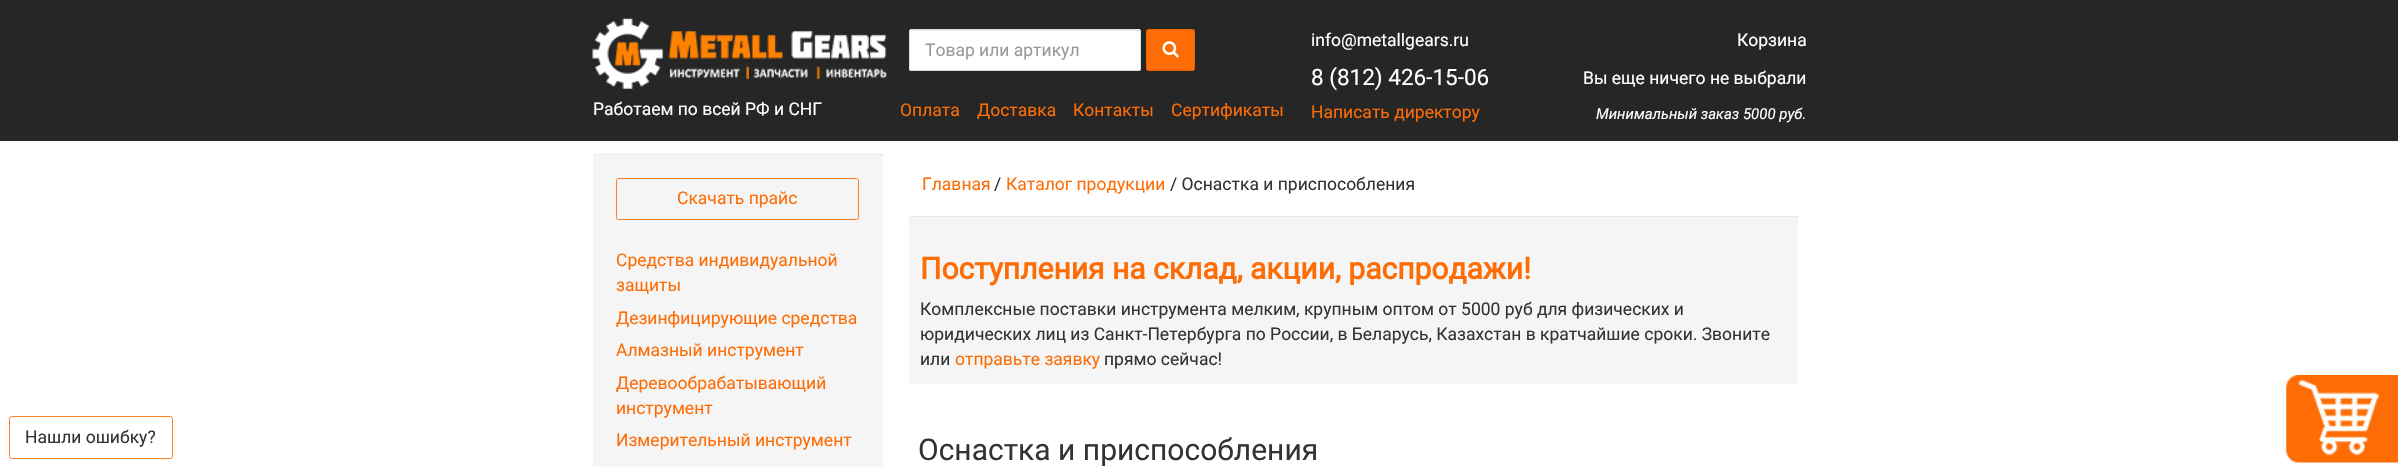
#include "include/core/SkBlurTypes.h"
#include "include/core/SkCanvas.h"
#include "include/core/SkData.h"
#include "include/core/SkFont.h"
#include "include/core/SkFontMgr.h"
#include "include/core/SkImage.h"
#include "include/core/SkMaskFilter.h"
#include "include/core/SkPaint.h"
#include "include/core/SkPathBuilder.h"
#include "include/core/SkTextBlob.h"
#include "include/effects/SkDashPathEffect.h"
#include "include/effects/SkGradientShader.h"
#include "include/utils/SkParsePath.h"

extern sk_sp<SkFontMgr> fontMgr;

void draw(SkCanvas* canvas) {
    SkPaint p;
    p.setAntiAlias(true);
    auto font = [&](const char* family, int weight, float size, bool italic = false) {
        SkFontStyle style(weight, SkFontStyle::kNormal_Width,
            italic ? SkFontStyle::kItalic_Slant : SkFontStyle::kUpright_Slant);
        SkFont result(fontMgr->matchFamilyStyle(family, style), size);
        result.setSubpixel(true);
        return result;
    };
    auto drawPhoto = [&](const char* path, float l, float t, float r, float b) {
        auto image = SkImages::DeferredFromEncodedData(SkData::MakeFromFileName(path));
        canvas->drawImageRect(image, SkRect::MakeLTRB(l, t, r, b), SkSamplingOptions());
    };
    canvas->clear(0xFFFFFFFF);
    p.setStyle(SkPaint::kStroke_Style);
    p.setStrokeWidth(1);
    p.setColor(0xFFFE8026);
    canvas->drawRoundRect(SkRect::MakeLTRB(9.5f, 416.5f, 172.5f, 458.5f), 2, 2, p);
    auto font1 = font("Roboto", 400, 17.5f);
    p.setStyle(SkPaint::kFill_Style);
    p.setColor(0xFF333333);
    canvas->drawString("Нашли ошибку?", 25, 443, font1, p);
    p.setColor(0xFF262626);
    canvas->drawRect(SkRect::MakeLTRB(0, 0, 2398, 141), p);
    drawPhoto("media/1.png", 592, 18, 887, 89);
    p.setColor(0xFFFFFFFF);
    canvas->drawString("Работаем по всей РФ и СНГ", 593, 115, font1, p);
    canvas->drawRoundRect(SkRect::MakeLTRB(909, 29, 1141, 71), 2.5f, 2.5f, p);
    p.setColor(0xFFECECEC);
    canvas->drawPath(SkPathBuilder().moveTo(911, 31).lineTo(1139, 31).lineTo(1140, 32).lineTo(1140, 30).lineTo(911, 30).cubicTo(910, 30, 910, 31, 910, 32).close().detach(), p);
    p.setStyle(SkPaint::kStroke_Style);
    p.setColor(0xFFE0E0E0);
    canvas->drawRoundRect(SkRect::MakeLTRB(909.5f, 29.5f, 1140.5f, 70.5f), 2, 2, p);
    p.setStyle(SkPaint::kFill_Style);
    p.setColor(0xFF999999);
    canvas->drawString("Товар или артикул", 925, 56, font1, p);
    p.setColor(0xFFFE6D05);
    canvas->drawRoundRect(SkRect::MakeLTRB(1146.5f, 29.5f, 1194.5f, 70.5f), 2, 2, p);
    p.setStyle(SkPaint::kStroke_Style);
    p.setColor(0xFFE86101);
    canvas->drawRoundRect(SkRect::MakeLTRB(1146.5f, 29.5f, 1194.5f, 70.5f), 2, 2, p);
    drawPhoto("media/2.png", 1162, 41, 1179, 58);
    p.setStyle(SkPaint::kFill_Style);
    p.setColor(0xFFFE6D05);
    {
        const struct { const char* s; float x, y; } items[] = {
            {"Оплата", 900, 116},
            {"Доставка", 977, 116},
            {"Контакты", 1073, 116},
            {"Сертификаты", 1171, 116},
        };
        for (auto [s, x, y] : items) {
            canvas->drawString(s, x, y, font1, p);
        }
    }
    p.setColor(0xFFFFFFFF);
    canvas->drawString("info@metallgears.ru", 1311, 46, font1, p);
    auto font2 = font("Roboto", 400, 22.5f);
    canvas->drawString("8 (812) 426-15-06", 1311, 85, font2, p);
    p.setColor(0xFFFE6D05);
    canvas->drawString("Написать директору", 1311, 118, font1, p);
    p.setColor(0xFFFFFFFF);
    canvas->drawString("Корзина", 1737, 46, font1, p);
    canvas->drawString("Вы еще ничего не выбрали", 1583, 84, font1, p);
    auto font3 = font("Roboto", 400, 15, true);
    canvas->drawString("Минимальный заказ 5000 руб.", 1596, 119, font3, p);
    p.setColor(0xFFF5F5F5);
    canvas->drawRect(SkRect::MakeLTRB(593, 155, 883, 467), p);
    p.setColor(0xFFE9E9E9);
    canvas->drawRect(SkRect::MakeLTRB(593, 154, 883, 155), p);
    p.setStyle(SkPaint::kStroke_Style);
    p.setColor(0xFFFE8026);
    canvas->drawRoundRect(SkRect::MakeLTRB(616.5f, 178.5f, 858.5f, 219.5f), 2, 2, p);
    p.setStyle(SkPaint::kFill_Style);
    p.setColor(0xFFFE6D05);
    {
        const struct { const char* s; float x, y; } items[] = {
            {"Скачать прайс", 677, 204},
            {"Средства индивидуальной", 616, 266},
            {"защиты", 616, 291},
            {"Дезинфицирующие средства", 616, 324},
            {"Алмазный инструмент", 616, 356},
            {"Деревообрабатывающий", 616, 389},
            {"инструмент", 616, 414},
            {"Измерительный инструмент", 616, 446},
            {"Главная", 922, 190},
        };
        for (auto [s, x, y] : items) {
            canvas->drawString(s, x, y, font1, p);
        }
    }
    p.setColor(0xFF333333);
    canvas->drawString("/", 994, 190, font1, p);
    p.setColor(0xFFFE6D05);
    canvas->drawString("Каталог продукции", 1006, 190, font1, p);
    p.setColor(0xFF333333);
    canvas->drawString("/ Оснастка и приспособления", 1170, 190, font1, p);
    p.setColor(0xFFF5F5F5);
    canvas->drawRect(SkRect::MakeLTRB(909, 217, 1798, 384), p);
    p.setColor(0xFFE9E9E9);
    canvas->drawRect(SkRect::MakeLTRB(909, 216, 1798, 217), p);
    auto font4 = font("Roboto", 700, 30);
    p.setColor(0xFFFE6D05);
    canvas->drawString("Поступления на склад, акции, распродажи!", 920, 279, font4, p);
    p.setColor(0xFF333333);
    {
        const struct { const char* s; float x, y; } items[] = {
            {"Комплексные поставки инструмента мелким, крупным оптом от 5000 руб для физических и", 920, 315},
            {"юридических лиц из Санкт-Петербурга по России, в Беларусь, Казахстан в кратчайшие сроки. Звоните", 920, 340},
            {"или", 920, 365},
        };
        for (auto [s, x, y] : items) {
            canvas->drawString(s, x, y, font1, p);
        }
    }
    p.setColor(0xFFFE6D05);
    canvas->drawString("отправьте заявку", 955, 365, font1, p);
    p.setColor(0xFF333333);
    canvas->drawString("прямо сейчас!", 1104, 365, font1, p);
    auto font5 = font("Roboto", 400, 30);
    canvas->drawString("Оснастка и приспособления", 918, 460, font5, p);
    drawPhoto("media/3.png", 2286, 375, 2398, 463);
}
